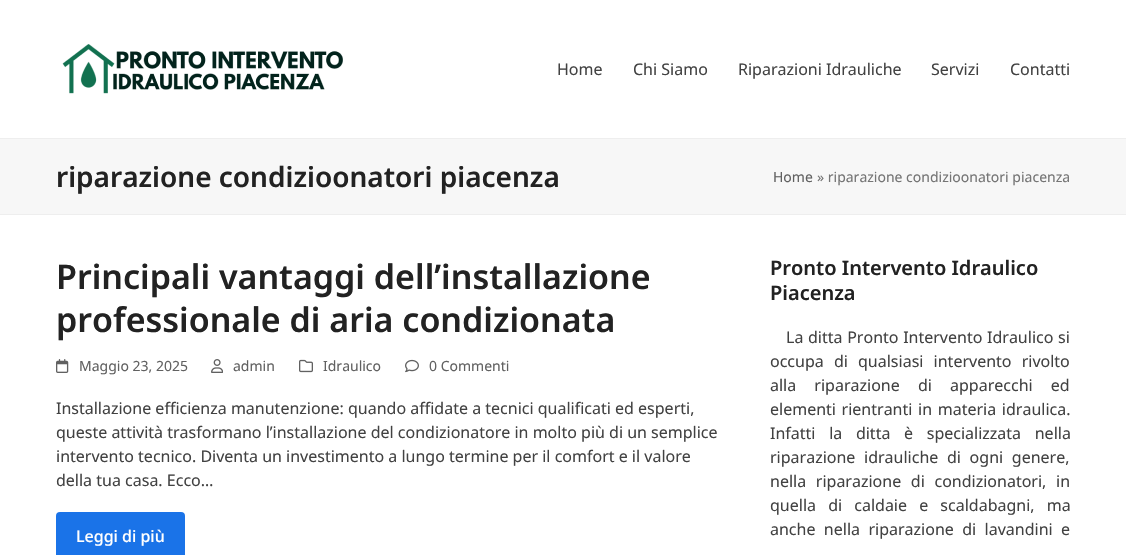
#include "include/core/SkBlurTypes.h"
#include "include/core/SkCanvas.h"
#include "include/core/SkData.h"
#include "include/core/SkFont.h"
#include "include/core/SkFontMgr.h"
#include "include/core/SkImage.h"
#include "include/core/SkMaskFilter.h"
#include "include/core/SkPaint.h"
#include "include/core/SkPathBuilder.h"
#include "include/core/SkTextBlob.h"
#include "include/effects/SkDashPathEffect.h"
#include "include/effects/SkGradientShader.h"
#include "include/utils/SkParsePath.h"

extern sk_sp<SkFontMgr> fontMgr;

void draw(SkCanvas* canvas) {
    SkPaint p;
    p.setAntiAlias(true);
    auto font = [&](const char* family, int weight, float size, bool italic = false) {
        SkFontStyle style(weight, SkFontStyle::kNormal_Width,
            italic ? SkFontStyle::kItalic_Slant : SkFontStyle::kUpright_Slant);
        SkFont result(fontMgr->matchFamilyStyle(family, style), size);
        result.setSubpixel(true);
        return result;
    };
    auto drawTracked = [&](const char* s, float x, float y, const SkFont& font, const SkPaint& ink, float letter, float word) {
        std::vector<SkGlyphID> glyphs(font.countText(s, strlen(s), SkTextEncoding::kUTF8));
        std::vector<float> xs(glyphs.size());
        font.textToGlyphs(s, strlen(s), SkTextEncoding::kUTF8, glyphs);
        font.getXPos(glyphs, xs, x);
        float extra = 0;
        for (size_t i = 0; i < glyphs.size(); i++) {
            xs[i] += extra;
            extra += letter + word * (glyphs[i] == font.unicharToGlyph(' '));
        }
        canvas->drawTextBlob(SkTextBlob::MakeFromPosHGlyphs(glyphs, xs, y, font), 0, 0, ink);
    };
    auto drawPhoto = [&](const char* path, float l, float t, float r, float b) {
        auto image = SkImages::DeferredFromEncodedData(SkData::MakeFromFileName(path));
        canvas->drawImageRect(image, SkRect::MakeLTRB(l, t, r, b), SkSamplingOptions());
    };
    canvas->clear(0xFFFFFFFF);
    drawPhoto("media/1.png", 62, 44, 343, 94);
    auto font1 = font("Noto Sans", 400, 16);
    p.setColor(0xFF424242);
    {
        const struct { const char* s; float x, y; } items[] = {
            {"Home", 557, 75},
            {"Chi Siamo", 633, 75},
            {"Riparazioni Idrauliche", 738, 75},
            {"Servizi", 931, 75},
            {"Contatti", 1010, 75},
        };
        for (auto [s, x, y] : items) {
            canvas->drawString(s, x, y, font1, p);
        }
    }
    {
        const struct { float l, t, r, b; SkColor color; } items[] = {
            {0, 139, 1126, 214, 0xFFF7F7F7},
            {0, 138, 1126, 139, 0xFFEEEEEE},
            {0, 214, 1126, 215, 0xFFEEEEEE},
        };
        for (auto [l, t, r, b, color] : items) {
            p.setColor(color);
            canvas->drawRect(SkRect::MakeLTRB(l, t, r, b), p);
        }
    }
    auto font2 = font("Noto Sans", 600, 28);
    p.setColor(0xFF222222);
    canvas->drawString("riparazione condizioonatori piacenza", 56, 187, font2, p);
    auto font3 = font("Noto Sans", 400, 14);
    p.setColor(0xFF616161);
    canvas->drawString("Home", 773, 182, font3, p);
    p.setColor(0xFF757575);
    canvas->drawString("» riparazione condizioonatori piacenza", 817, 182, font3, p);
    auto font4 = font("Noto Sans", 600, 34);
    p.setColor(0xFF222222);
    canvas->drawString("Principali vantaggi dell’installazione", 56, 289, font4, p);
    canvas->drawString("professionale di aria condizionata", 56, 332, font4, p);
    drawPhoto("media/2.png", 56, 359, 69, 373);
    p.setColor(0xFF616161);
    canvas->drawString("Maggio 23, 2025", 79, 371, font3, p);
    drawPhoto("media/3.png", 211, 359, 223, 373);
    canvas->drawString("admin", 233, 371, font3, p);
    drawPhoto("media/4.png", 299, 359, 313, 373);
    canvas->drawString("Idraulico", 323, 371, font3, p);
    drawPhoto("media/5.png", 405, 359, 419, 373);
    canvas->drawString("0 Commenti", 429, 371, font3, p);
    p.setColor(0xFF424242);
    {
        const struct { const char* s; float x, y; } items[] = {
            {"Installazione efficienza manutenzione: quando affidate a tecnici qualificati ed esperti,", 56, 414},
            {"queste attività trasformano l’installazione del condizionatore in molto più di un semplice", 56, 438},
            {"intervento tecnico. Diventa un investimento a lungo termine per il comfort e il valore", 56, 462},
            {"della tua casa. Ecco…", 56, 486},
        };
        for (auto [s, x, y] : items) {
            canvas->drawString(s, x, y, font1, p);
        }
    }
    p.setColor(0xFF1A73E8);
    canvas->drawRoundRect(SkRect::MakeLTRB(56, 512, 185, 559), 4, 4, p);
    auto font5 = font("Noto Sans", 500, 16);
    p.setColor(0xFFFFFFFF);
    canvas->drawString("Leggi di più", 76, 542, font5, p);
    auto font6 = font("Noto Sans", 600, 20);
    p.setColor(0xFF222222);
    canvas->drawString("Pronto Intervento Idraulico", 770, 275, font6, p);
    canvas->drawString("Piacenza", 770, 300, font6, p);
    p.setColor(0xFF424242);
    drawTracked("La ditta Pronto Intervento Idraulico si", 786, 343, font1, p, 0, 0.5f);
    drawTracked("occupa di qualsiasi intervento rivolto", 770, 367, font1, p, 0, 6);
    drawTracked("alla riparazione di apparecchi ed", 770, 391, font1, p, 0, 14);
    drawTracked("elementi rientranti in materia idraulica.", 770, 415, font1, p, 0, 1.5f);
    drawTracked("Infatti la ditta è specializzata nella", 770, 439, font1, p, 0, 9.5f);
    drawTracked("riparazione idrauliche di ogni genere,", 770, 463, font1, p, 0, 4.5f);
    drawTracked("nella riparazione di condizionatori, in", 770, 487, font1, p, 0, 5.5f);
    drawTracked("quella di caldaie e scaldabagni, ma", 770, 511, font1, p, 0, 8);
    drawTracked("anche nella riparazione di lavandini e", 770, 535, font1, p, 0, 4.25f);
}
